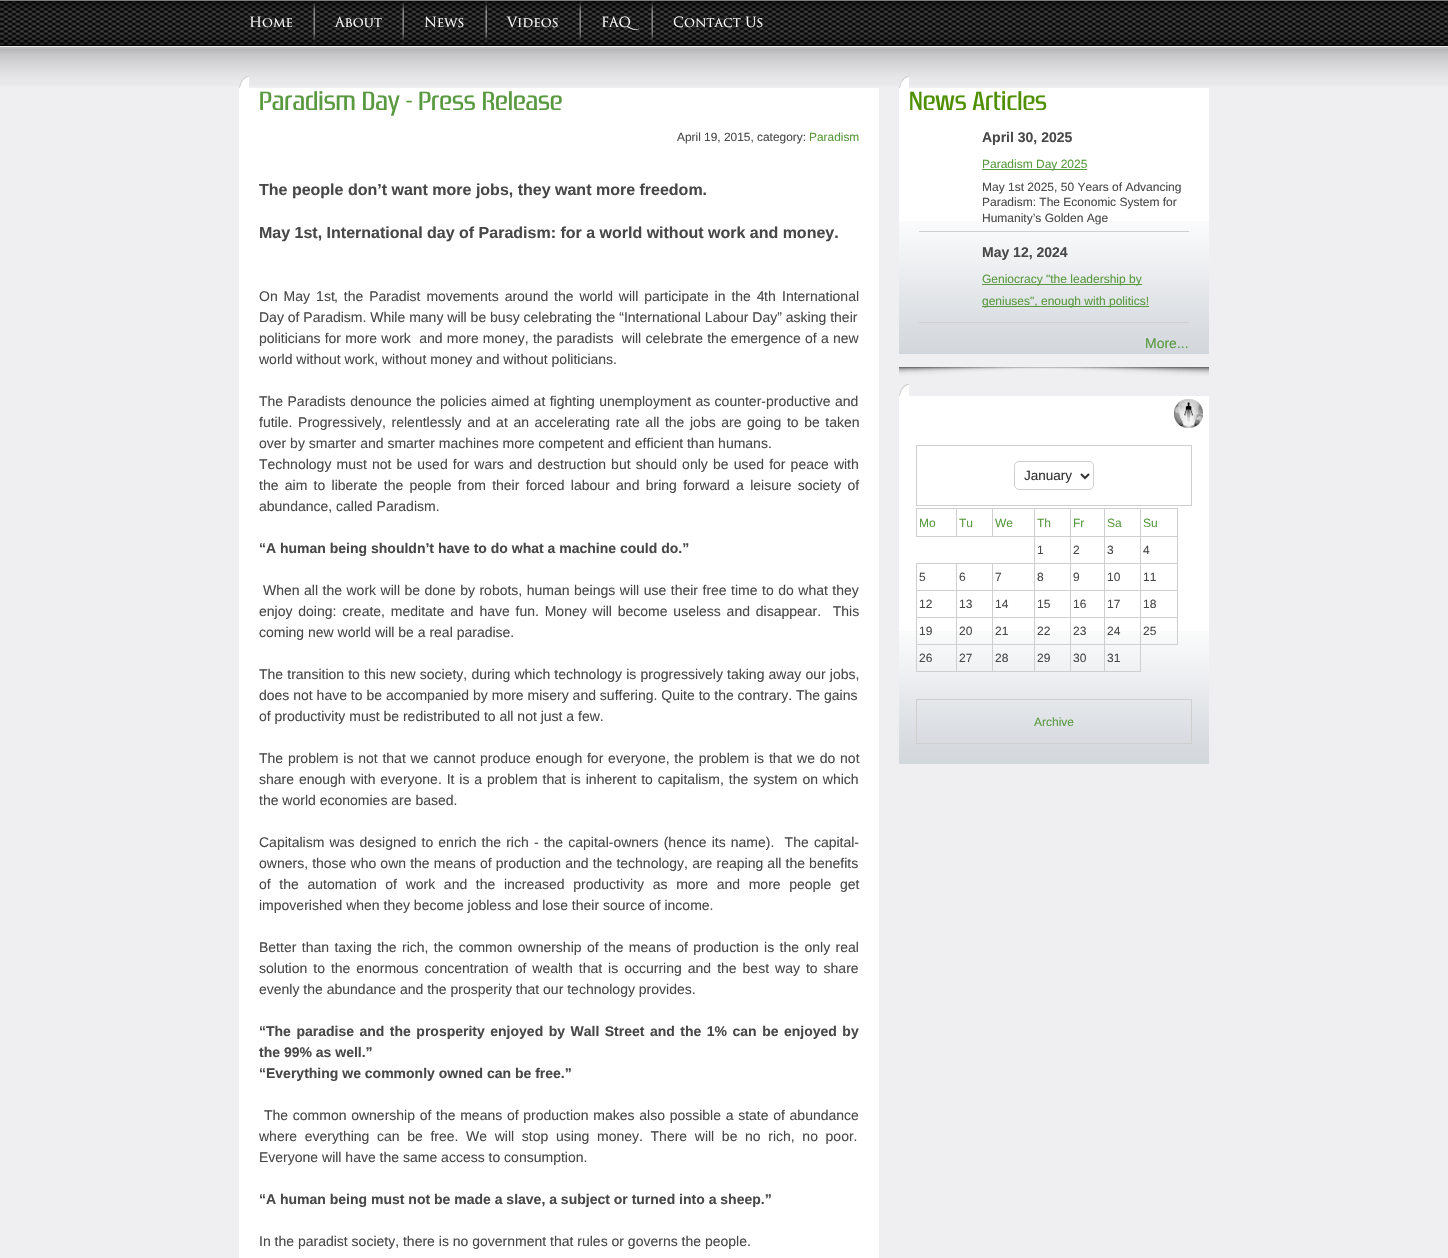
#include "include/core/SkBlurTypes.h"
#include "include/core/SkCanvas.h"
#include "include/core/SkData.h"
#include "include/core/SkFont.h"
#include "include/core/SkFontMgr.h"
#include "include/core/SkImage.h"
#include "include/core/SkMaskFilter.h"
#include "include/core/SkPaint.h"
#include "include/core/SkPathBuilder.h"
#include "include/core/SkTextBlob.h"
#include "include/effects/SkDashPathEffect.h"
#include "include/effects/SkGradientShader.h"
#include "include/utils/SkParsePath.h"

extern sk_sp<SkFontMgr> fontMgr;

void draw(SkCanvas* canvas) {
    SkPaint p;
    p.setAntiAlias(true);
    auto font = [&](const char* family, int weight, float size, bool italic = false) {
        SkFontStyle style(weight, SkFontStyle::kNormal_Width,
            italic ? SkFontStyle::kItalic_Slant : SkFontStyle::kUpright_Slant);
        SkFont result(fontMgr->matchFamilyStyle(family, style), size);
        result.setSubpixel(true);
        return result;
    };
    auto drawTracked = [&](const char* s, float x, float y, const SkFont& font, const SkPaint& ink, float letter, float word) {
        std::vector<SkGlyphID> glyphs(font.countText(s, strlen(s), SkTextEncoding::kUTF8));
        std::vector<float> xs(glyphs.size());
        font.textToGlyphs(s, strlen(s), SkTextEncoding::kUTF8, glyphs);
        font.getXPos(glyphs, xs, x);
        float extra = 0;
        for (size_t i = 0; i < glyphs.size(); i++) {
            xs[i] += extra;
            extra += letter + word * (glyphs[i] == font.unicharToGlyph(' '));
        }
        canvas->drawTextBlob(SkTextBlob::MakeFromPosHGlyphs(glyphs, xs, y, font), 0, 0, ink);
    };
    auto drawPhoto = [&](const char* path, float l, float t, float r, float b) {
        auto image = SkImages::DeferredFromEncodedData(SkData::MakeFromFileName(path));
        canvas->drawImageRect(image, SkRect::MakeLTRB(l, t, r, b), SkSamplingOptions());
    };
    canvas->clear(0xFFFFFFFF);
    drawPhoto("media/1.png", 0, 0, 1448, 46);
    auto font1 = font("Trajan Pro", 400, 16);
    p.setColor(0xFFFFFFFF);
    canvas->drawString("Home", 249, 27, font1, p);
    drawPhoto("media/2.png", 313, 1, 315, 43);
    canvas->drawString("About", 335, 27, font1, p);
    drawPhoto("media/3.png", 402, 1, 404, 43);
    canvas->drawString("News", 424, 27, font1, p);
    drawPhoto("media/4.png", 485, 1, 487, 43);
    canvas->drawString("Videos", 507, 27, font1, p);
    drawPhoto("media/5.png", 579, 1, 581, 43);
    canvas->drawString("FAQ", 601, 27, font1, p);
    drawPhoto("media/5.png", 651, 1, 653, 43);
    canvas->drawString("Contact Us", 673, 27, font1, p);
    p.setColor(0xFFEFEFF2);
    canvas->drawRect(SkRect::MakeLTRB(0, 46, 1448, 1258), p);
    drawPhoto("media/6.png", 0, 47, 1448, 86);
    drawPhoto("media/7.png", 239, 76, 249, 88);
    p.setColor(0xFFFFFFFF);
    canvas->drawRect(SkRect::MakeLTRB(239, 88, 879, 1258), p);
    auto font2 = font("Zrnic", 400, 26);
    p.setColor(0xFF59993F);
    canvas->drawString("Paradism Day - Press Release", 259, 110, font2, p);
    auto font3 = font("Liberation Sans", 400, 11.9f);
    p.setColor(0xFF494848);
    canvas->drawString("April 19, 2015, category:", 677, 141, font3, p);
    p.setColor(0xFF59993F);
    canvas->drawString("Paradism", 809, 141, font3, p);
    auto font4 = font("Liberation Sans", 700, 16);
    p.setColor(0xFF494848);
    canvas->drawString("The people don’t want more jobs, they want more freedom.", 259, 195, font4, p);
    canvas->drawString("May 1st, International day of Paradism: for a world without work and money.", 259, 238, font4, p);
    auto font5 = font("Liberation Sans", 400, 14);
    drawTracked("On May 1", 259, 301, font5, p, 0, 2);
    canvas->drawString("st", 324, 301, font5, p);
    drawTracked(", the Paradist movements around the world will participate in the 4", 334, 301, font5, p, 0, 2);
    {
        const struct { const char* s; float x, y; } items[] = {
            {"th", 764, 301},
            {"International", 782, 301},
            {"Day of Paradism. While many will be busy celebrating the “International Labour Day” asking their", 259, 322},
        };
        for (auto [s, x, y] : items) {
            canvas->drawString(s, x, y, font5, p);
        }
    }
    drawTracked("politicians for more work  and more money, the paradists  will celebrate the emergence of a new", 259, 343, font5, p, 0, 0.3f);
    canvas->drawString("world without work, without money and without politicians.", 259, 364, font5, p);
    drawTracked("The Paradists denounce the policies aimed at fighting unemployment as counter-productive and", 259, 406, font5, p, 0, 0.5f);
    drawTracked("futile. Progressively, relentlessly and at an accelerating rate all the jobs are going to be taken", 259, 427, font5, p, 0, 1.7f);
    canvas->drawString("over by smarter and smarter machines more competent and efficient than humans.", 259, 448, font5, p);
    drawTracked("Technology must not be used for wars and destruction but should only be used for peace with", 259, 469, font5, p, 0, 1.25f);
    drawTracked("the aim to liberate the people from their forced labour and bring forward a leisure society of", 259, 490, font5, p, 0, 2.4f);
    canvas->drawString("abundance, called Paradism.", 259, 511, font5, p);
    auto font6 = font("Liberation Sans", 700, 14);
    canvas->drawString("“A human being shouldn’t have to do what a machine could do.”", 259, 553, font6, p);
    drawTracked("When all the work will be done by robots, human beings will use their free time to do what they", 263, 595, font5, p, 0, 0.6f);
    drawTracked("enjoy doing: create, meditate and have fun. Money will become useless and disappear.  This", 259, 616, font5, p, 0, 1.9f);
    canvas->drawString("coming new world will be a real paradise.", 259, 637, font5, p);
    drawTracked("The transition to this new society, during which technology is progressively taking away our jobs,", 259, 679, font5, p, 0, 0.25f);
    canvas->drawString("does not have to be accompanied by more misery and suffering. Quite to the contrary. The gains", 259, 700, font5, p);
    canvas->drawString("of productivity must be redistributed to all not just a few.", 259, 721, font5, p);
    drawTracked("The problem is not that we cannot produce enough for everyone, the problem is that we do not", 259, 763, font5, p, 0, 0.9f);
    drawTracked("share enough with everyone. It is a problem that is inherent to capitalism, the system on which", 259, 784, font5, p, 0, 1);
    canvas->drawString("the world economies are based.", 259, 805, font5, p);
    drawTracked("Capitalism was designed to enrich the rich - the capital-owners (hence its name).  The capital-", 259, 847, font5, p, 0, 1.25f);
    drawTracked("owners, those who own the means of production and the technology, are reaping all the benefits", 259, 868, font5, p, 0, 0.25f);
    drawTracked("of the automation of work and the increased productivity as more and more people get", 259, 889, font5, p, 0, 4.75f);
    canvas->drawString("impoverished when they become jobless and lose their source of income.", 259, 910, font5, p);
    drawTracked("Better than taxing the rich, the common ownership of the means of production is the only real", 259, 952, font5, p, 0, 1.5f);
    drawTracked("solution to the enormous concentration of wealth that is occurring and the best way to share", 259, 973, font5, p, 0, 2.1f);
    canvas->drawString("evenly the abundance and the prosperity that our technology provides.", 259, 994, font5, p);
    drawTracked("“The paradise and the prosperity enjoyed by Wall Street and the 1% can be enjoyed by", 259, 1036, font6, p, 0, 1.6f);
    canvas->drawString("the 99% as well.”", 259, 1057, font6, p);
    canvas->drawString("“Everything we commonly owned can be free.”", 259, 1078, font6, p);
    drawTracked("The common ownership of the means of production makes also possible a state of abundance", 264, 1120, font5, p, 0, 0.8f);
    drawTracked("where everything can be free. We will stop using money. There will be no rich, no poor.", 259, 1141, font5, p, 0, 3.75f);
    canvas->drawString("Everyone will have the same access to consumption.", 259, 1162, font5, p);
    canvas->drawString("“A human being must not be made a slave, a subject or turned into a sheep.”", 259, 1204, font6, p);
    canvas->drawString("In the paradist society, there is no government that rules or governs the people.", 259, 1246, font5, p);
    drawPhoto("media/8.png", 899, 367, 1209, 376);
    drawPhoto("media/7.png", 899, 76, 909, 88);
    p.setColor(0xFFFFFFFF);
    canvas->drawRect(SkRect::MakeLTRB(899, 88, 1209, 221), p);
    drawPhoto("media/9.png", 899, 221, 1209, 354);
    p.setColor(0xFF4F9002);
    canvas->drawString("News Articles", 909, 110, font2, p);
    p.setColor(0xFFCFCFD0);
    canvas->drawRect(SkRect::MakeLTRB(919, 231, 1189, 232), p);
    p.setColor(0xFF494848);
    canvas->drawString("April 30, 2025", 982, 142, font6, p);
    p.setColor(0xFF59993F);
    canvas->drawRect(SkRect::MakeLTRB(982, 169, 1087, 170), p);
    auto font7 = font("Liberation Sans", 400, 12);
    canvas->drawString("Paradism Day 2025", 982, 168, font7, p);
    p.setColor(0xFF494848);
    {
        const struct { const char* s; float x, y; } items[] = {
            {"May 1st 2025, 50 Years of Advancing", 982, 191},
            {"Paradism: The Economic System for", 982, 206},
            {"Humanity’s Golden Age", 982, 222},
        };
        for (auto [s, x, y] : items) {
            canvas->drawString(s, x, y, font7, p);
        }
    }
    p.setColor(0xFFCFCFD0);
    canvas->drawRect(SkRect::MakeLTRB(919, 322, 1189, 323), p);
    p.setColor(0xFF494848);
    canvas->drawString("May 12, 2024", 982, 257, font6, p);
    p.setColor(0xFF59993F);
    canvas->drawRect(SkRect::MakeLTRB(982, 284, 1142, 285), p);
    canvas->drawString("Geniocracy \"the leadership by", 982, 283, font7, p);
    canvas->drawRect(SkRect::MakeLTRB(982, 306, 1149, 307), p);
    canvas->drawString("geniuses\", enough with politics!", 982, 305, font7, p);
    canvas->drawString("More...", 1145, 348, font5, p);
    drawPhoto("media/10.png", 899, 384, 909, 396);
    p.setColor(0xFFFFFFFF);
    canvas->drawRect(SkRect::MakeLTRB(899, 396, 1209, 631), p);
    drawPhoto("media/9.png", 899, 631, 1209, 764);
    drawPhoto("media/11.png", 1174, 399, 1203, 428);
    p.setStyle(SkPaint::kStroke_Style);
    p.setStrokeWidth(1);
    p.setColor(0xFFCFCFD0);
    canvas->drawRect(SkRect::MakeLTRB(916.5f, 445.5f, 1191.5f, 505.5f), p);
    canvas->drawRoundRect(SkRect::MakeLTRB(1014.5f, 461.5f, 1093.5f, 489.5f), 4.5f, 4.5f, p);
    p.setStrokeWidth(2);
    p.setColor(0xFF333333);
    canvas->drawPath(SkPathBuilder().moveTo(1081, 474).lineTo(1085, 478).lineTo(1089, 474).detach(), p);
    auto font8 = font("Liberation Sans", 400, 13.5f);
    p.setStyle(SkPaint::kFill_Style);
    canvas->drawString("January", 1024, 480, font8, p);
    {
        const struct { float l, t, r, b; SkColor color; } items[] = {
            {1140, 508, 1178, 509, 0xFFCFCFD0},
            {1140, 536, 1178, 537, 0xFFCFCFD0},
            {1140, 563, 1178, 564, 0xFFCFCFD0},
            {1140, 590, 1178, 591, 0xFFCFCFD0},
            {1140, 617, 1178, 618, 0xFFCFCFD0},
            {1177, 617, 1178, 645, 0xFFCFCFD0},
            {1104, 644, 1141, 645, 0xFFCFCFD0},
            {1140, 644, 1141, 672, 0xFFCFCFD0},
            {1140, 644, 1178, 645, 0xFFCFCFD0},
            {1140, 617, 1141, 645, 0xFFCFCFD0},
            {1104, 617, 1141, 618, 0xFFCFCFD0},
            {1140, 590, 1141, 618, 0xFFCFCFD0},
            {1104, 590, 1141, 591, 0xFFCFCFD0},
            {1140, 563, 1141, 591, 0xFFCFCFD0},
            {1104, 563, 1141, 564, 0xFFCFCFD0},
            {1140, 536, 1141, 564, 0xFFCFCFD0},
            {1104, 536, 1141, 537, 0xFFCFCFD0},
            {1140, 508, 1141, 537, 0xFFCFCFD0},
            {1104, 508, 1141, 509, 0xFFCFCFD0},
            {1104, 671, 1141, 672, 0xFFCFCFD0},
            {1104, 644, 1105, 672, 0xFFCFCFD0},
            {1070, 644, 1105, 645, 0xFFCFCFD0},
            {1104, 617, 1105, 645, 0xFFCFCFD0},
            {1070, 617, 1105, 618, 0xFFCFCFD0},
            {1104, 590, 1105, 618, 0xFFCFCFD0},
            {1070, 590, 1105, 591, 0xFFCFCFD0},
            {1104, 563, 1105, 591, 0xFFCFCFD0},
            {1070, 563, 1105, 564, 0xFFCFCFD0},
            {1104, 536, 1105, 564, 0xFFCFCFD0},
            {1070, 536, 1105, 537, 0xFFCFCFD0},
            {1104, 508, 1105, 537, 0xFFCFCFD0},
            {1070, 508, 1105, 509, 0xFFCFCFD0},
            {1070, 671, 1105, 672, 0xFFCFCFD0},
            {1070, 644, 1071, 672, 0xFFCFCFD0},
            {1034, 644, 1071, 645, 0xFFCFCFD0},
            {1070, 617, 1071, 645, 0xFFCFCFD0},
            {1034, 617, 1071, 618, 0xFFCFCFD0},
            {1070, 590, 1071, 618, 0xFFCFCFD0},
            {1034, 590, 1071, 591, 0xFFCFCFD0},
            {1070, 563, 1071, 591, 0xFFCFCFD0},
            {1034, 563, 1071, 564, 0xFFCFCFD0},
            {1070, 536, 1071, 564, 0xFFCFCFD0},
            {1034, 536, 1071, 537, 0xFFCFCFD0},
            {1070, 508, 1071, 537, 0xFFCFCFD0},
            {1034, 508, 1071, 509, 0xFFCFCFD0},
            {1034, 671, 1071, 672, 0xFFCFCFD0},
            {1034, 644, 1035, 672, 0xFFCFCFD0},
            {992, 644, 1035, 645, 0xFFCFCFD0},
            {1034, 617, 1035, 645, 0xFFCFCFD0},
            {992, 617, 1035, 618, 0xFFCFCFD0},
            {1034, 590, 1035, 618, 0xFFCFCFD0},
            {992, 590, 1035, 591, 0xFFCFCFD0},
            {1034, 563, 1035, 591, 0xFFCFCFD0},
            {992, 563, 1035, 564, 0xFFCFCFD0},
            {1034, 536, 1035, 564, 0xFFCFCFD0},
            {1034, 508, 1035, 537, 0xFFCFCFD0},
            {992, 508, 1035, 509, 0xFFCFCFD0},
            {992, 536, 1035, 537, 0xFFCFCFD0},
            {992, 508, 993, 537, 0xFFCFCFD0},
            {956, 508, 993, 509, 0xFFCFCFD0},
            {956, 536, 993, 537, 0xFFCFCFD0},
            {956, 508, 957, 537, 0xFFCFCFD0},
            {916, 508, 957, 509, 0xFFCFCFD0},
            {916, 536, 957, 537, 0xFFCFCFD0},
            {916, 508, 917, 537, 0xFFCFCFD0},
        };
        for (auto [l, t, r, b, color] : items) {
            p.setColor(color);
            canvas->drawRect(SkRect::MakeLTRB(l, t, r, b), p);
        }
    }
    p.setColor(0xFF59993F);
    {
        const struct { const char* s; float x, y; } items[] = {
            {"Mo", 919, 527},
            {"Tu", 959, 527},
            {"We", 995, 527},
            {"Th", 1037, 527},
            {"Fr", 1073, 527},
            {"Sa", 1107, 527},
        };
        for (auto [s, x, y] : items) {
            canvas->drawString(s, x, y, font7, p);
        }
    }
    {
        const struct { float l, t, r, b; SkColor color; } items[] = {
            {1177, 590, 1178, 618, 0xFFCFCFD0},
            {1177, 563, 1178, 591, 0xFFCFCFD0},
            {1177, 536, 1178, 564, 0xFFCFCFD0},
            {1177, 508, 1178, 537, 0xFFCFCFD0},
        };
        for (auto [l, t, r, b, color] : items) {
            p.setColor(color);
            canvas->drawRect(SkRect::MakeLTRB(l, t, r, b), p);
        }
    }
    p.setColor(0xFF59993F);
    canvas->drawString("Su", 1143, 527, font7, p);
    p.setColor(0xFF494848);
    {
        const struct { const char* s; float x, y; } items[] = {
            {"1", 1037, 554},
            {"2", 1073, 554},
            {"3", 1107, 554},
            {"4", 1143, 554},
        };
        for (auto [s, x, y] : items) {
            canvas->drawString(s, x, y, font7, p);
        }
    }
    {
        const struct { float l, t, r, b; SkColor color; } items[] = {
            {992, 671, 1035, 672, 0xFFCFCFD0},
            {992, 644, 993, 672, 0xFFCFCFD0},
            {956, 644, 993, 645, 0xFFCFCFD0},
            {992, 617, 993, 645, 0xFFCFCFD0},
            {956, 617, 993, 618, 0xFFCFCFD0},
            {992, 590, 993, 618, 0xFFCFCFD0},
            {956, 590, 993, 591, 0xFFCFCFD0},
            {992, 563, 993, 591, 0xFFCFCFD0},
            {956, 563, 993, 564, 0xFFCFCFD0},
            {956, 671, 993, 672, 0xFFCFCFD0},
            {956, 644, 957, 672, 0xFFCFCFD0},
            {916, 644, 957, 645, 0xFFCFCFD0},
            {956, 617, 957, 645, 0xFFCFCFD0},
            {916, 617, 957, 618, 0xFFCFCFD0},
            {956, 590, 957, 618, 0xFFCFCFD0},
            {916, 590, 957, 591, 0xFFCFCFD0},
            {956, 563, 957, 591, 0xFFCFCFD0},
            {916, 563, 957, 564, 0xFFCFCFD0},
            {916, 671, 957, 672, 0xFFCFCFD0},
            {916, 644, 917, 672, 0xFFCFCFD0},
            {916, 617, 917, 645, 0xFFCFCFD0},
            {916, 590, 917, 618, 0xFFCFCFD0},
            {916, 563, 917, 591, 0xFFCFCFD0},
        };
        for (auto [l, t, r, b, color] : items) {
            p.setColor(color);
            canvas->drawRect(SkRect::MakeLTRB(l, t, r, b), p);
        }
    }
    p.setColor(0xFF494848);
    {
        const struct { const char* s; float x, y; } items[] = {
            {"5", 919, 581},
            {"6", 959, 581},
            {"7", 995, 581},
            {"8", 1037, 581},
            {"9", 1073, 581},
            {"10", 1107, 581},
            {"11", 1143, 581},
            {"12", 919, 608},
            {"13", 959, 608},
            {"14", 995, 608},
            {"15", 1037, 608},
            {"16", 1073, 608},
            {"17", 1107, 608},
            {"18", 1143, 608},
            {"19", 919, 635},
            {"20", 959, 635},
            {"21", 995, 635},
            {"22", 1037, 635},
            {"23", 1073, 635},
            {"24", 1107, 635},
            {"25", 1143, 635},
            {"26", 919, 662},
            {"27", 959, 662},
            {"28", 995, 662},
            {"29", 1037, 662},
            {"30", 1073, 662},
            {"31", 1107, 662},
        };
        for (auto [s, x, y] : items) {
            canvas->drawString(s, x, y, font7, p);
        }
    }
    p.setStyle(SkPaint::kStroke_Style);
    p.setStrokeWidth(1);
    p.setColor(0xFFCFCFD0);
    canvas->drawRect(SkRect::MakeLTRB(916.5f, 699.5f, 1191.5f, 743.5f), p);
    p.setStyle(SkPaint::kFill_Style);
    p.setColor(0xFF59993F);
    canvas->drawString("Archive", 1034, 726, font7, p);
}
